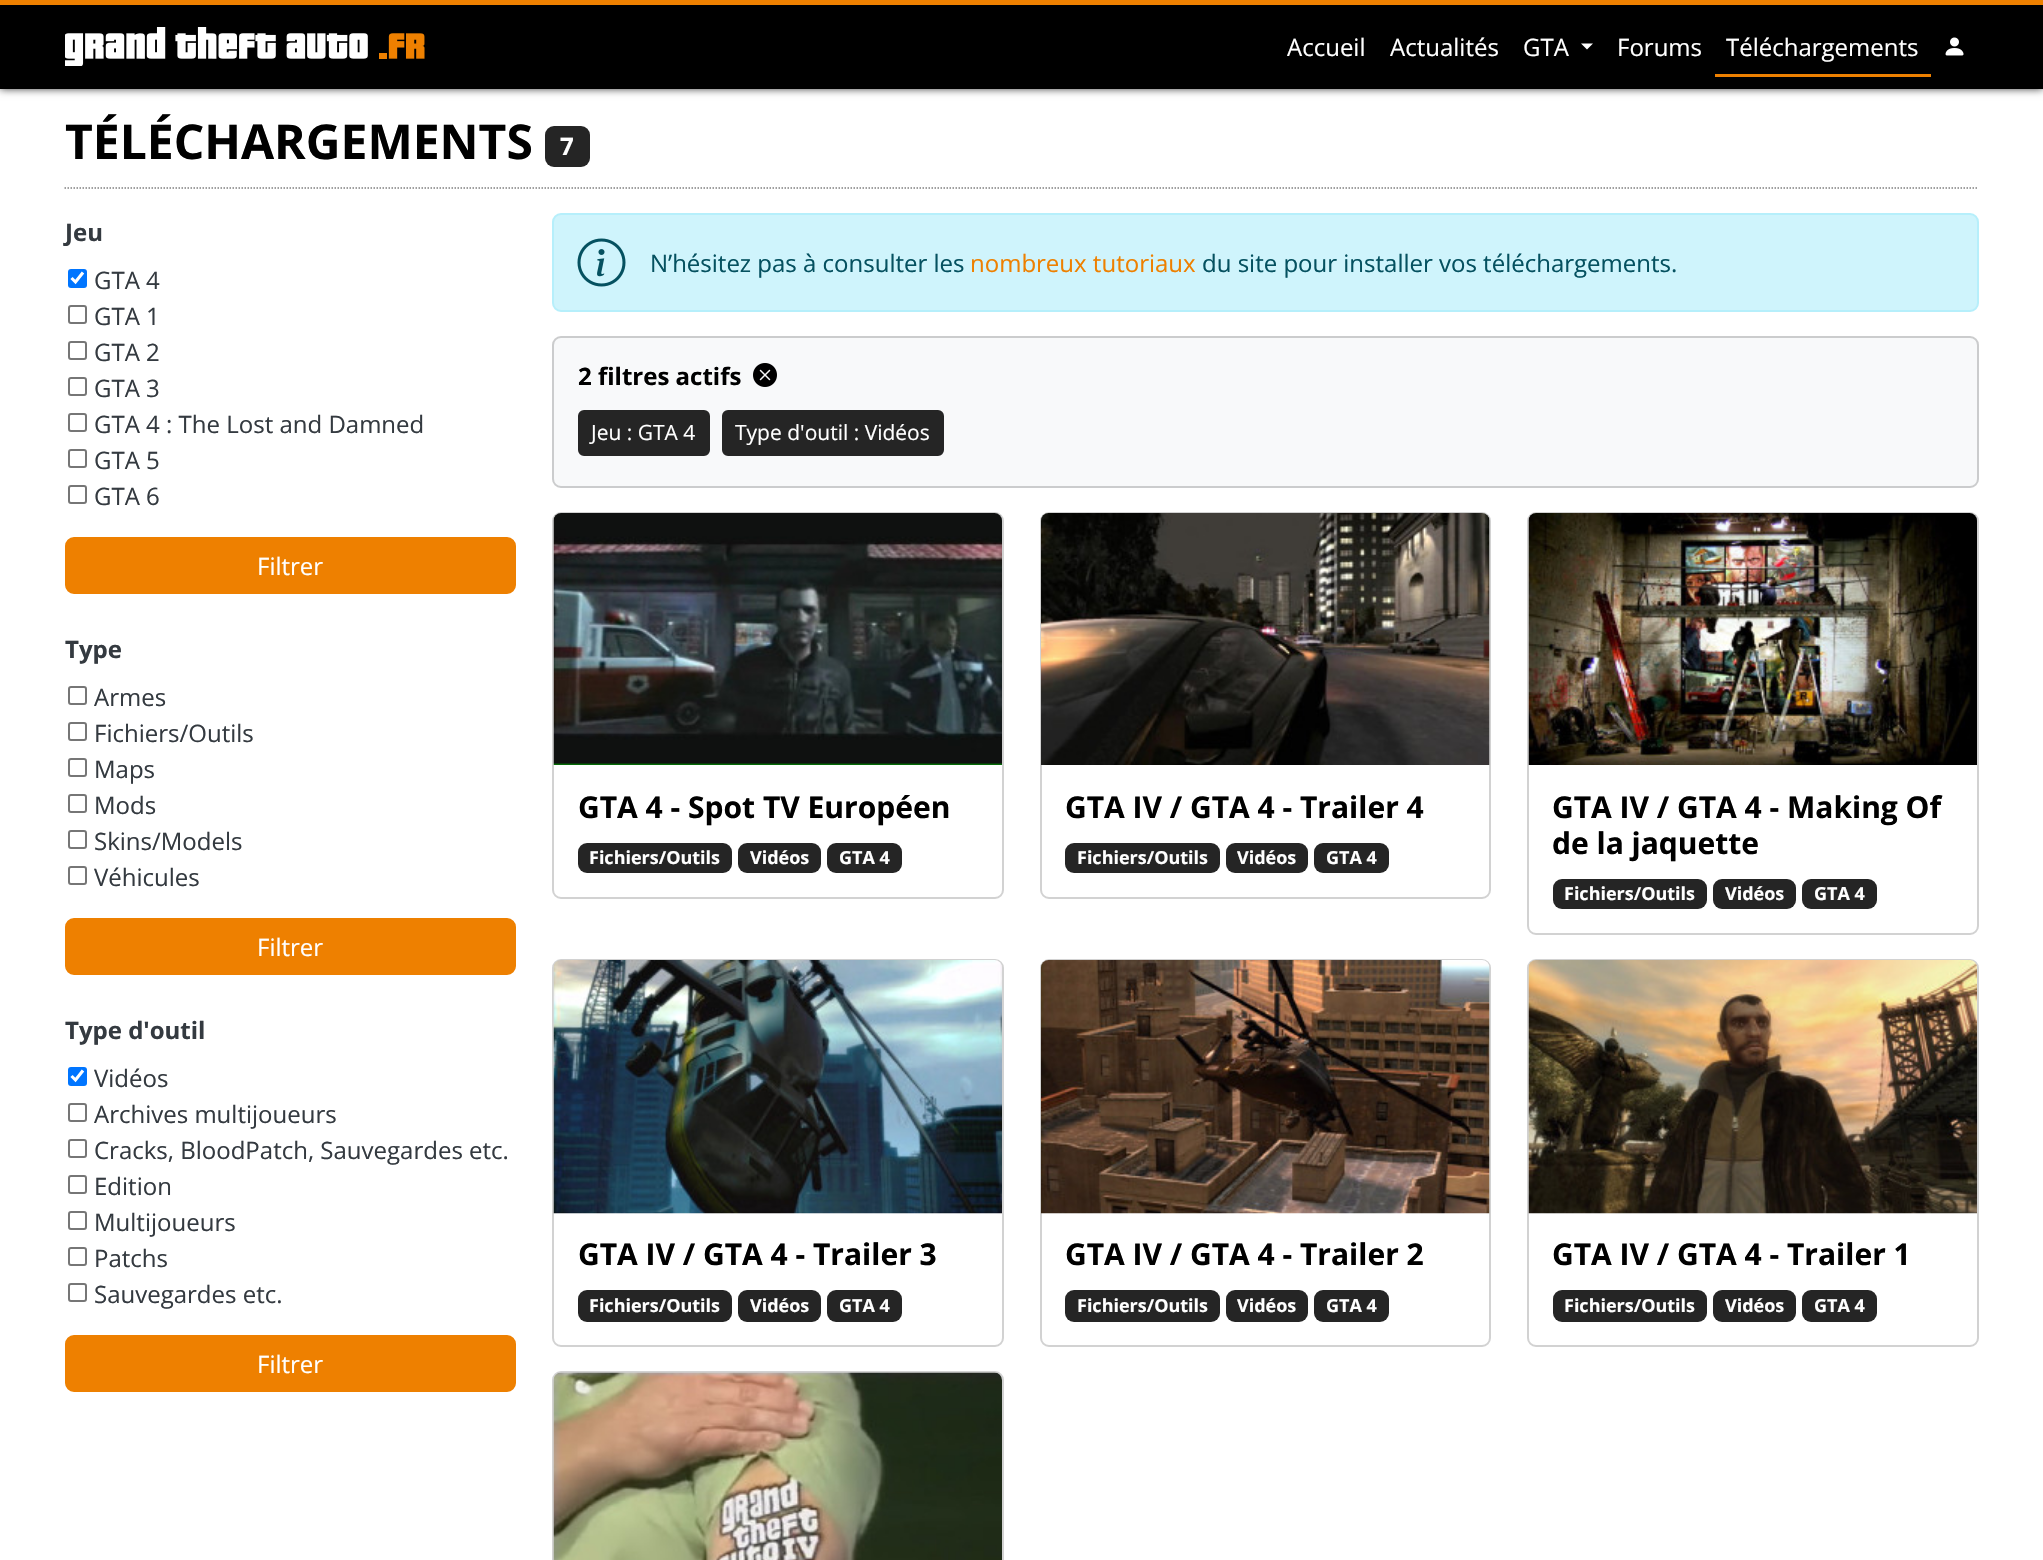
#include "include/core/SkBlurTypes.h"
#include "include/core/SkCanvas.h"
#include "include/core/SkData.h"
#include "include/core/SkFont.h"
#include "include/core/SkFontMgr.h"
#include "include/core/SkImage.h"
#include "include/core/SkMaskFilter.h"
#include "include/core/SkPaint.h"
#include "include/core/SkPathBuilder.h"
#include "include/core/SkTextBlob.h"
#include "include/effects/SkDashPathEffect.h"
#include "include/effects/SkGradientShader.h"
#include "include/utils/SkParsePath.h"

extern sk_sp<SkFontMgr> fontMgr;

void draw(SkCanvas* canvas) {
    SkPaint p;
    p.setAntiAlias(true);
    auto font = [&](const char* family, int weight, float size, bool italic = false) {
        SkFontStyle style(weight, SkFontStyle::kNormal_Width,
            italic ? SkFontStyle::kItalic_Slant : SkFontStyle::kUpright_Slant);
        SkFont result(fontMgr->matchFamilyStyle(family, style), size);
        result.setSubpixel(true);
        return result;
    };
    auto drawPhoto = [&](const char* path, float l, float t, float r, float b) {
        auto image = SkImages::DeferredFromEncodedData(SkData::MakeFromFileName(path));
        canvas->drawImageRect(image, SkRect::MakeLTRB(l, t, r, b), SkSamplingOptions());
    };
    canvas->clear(0xFFFFFFFF);
    p.setColor(0xBF000000);
    p.setMaskFilter(SkMaskFilter::MakeBlur(kNormal_SkBlurStyle, 4));
    canvas->drawRect(SkRect::MakeLTRB(0, 0, 2043, 89), p);
    p.setMaskFilter(nullptr);
    p.setColor(0xFF000000);
    canvas->drawRect(SkRect::MakeLTRB(0, 5, 2043, 89), p);
    p.setColor(0xFFEE8000);
    canvas->drawRect(SkRect::MakeLTRB(0, 0, 2043, 5), p);
    drawPhoto("media/1.png", 65, 27, 425, 66);
    auto font1 = font("Open Sans", 400, 24);
    p.setColor(0xFFFFFFFF);
    {
        const struct { const char* s; float x, y; } items[] = {
            {"Accueil", 1287, 56},
            {"Actualités", 1390, 56},
            {"GTA", 1523, 56},
        };
        for (auto [s, x, y] : items) {
            canvas->drawString(s, x, y, font1, p);
        }
    }
    canvas->drawPath(SkPathBuilder().moveTo(1581, 43.5f).lineTo(1593, 43.5f).lineTo(1587, 49.5f).close().detach(), p);
    canvas->drawString("Forums", 1617, 56, font1, p);
    p.setColor(0xFFEE8000);
    canvas->drawRect(SkRect::MakeLTRB(1715, 74, 1931, 77), p);
    p.setColor(0xFFFFFFFF);
    canvas->drawString("Téléchargements", 1726, 56, font1, p);
    drawPhoto("media/2.png", 1945, 37, 1964, 56);
    p.setStyle(SkPaint::kStroke_Style);
    p.setStrokeWidth(1.5f);
    p.setColor(0xFF808080);
    p.setPathEffect(SkDashPathEffect::Make({{1.5f, 1.5f}}, 0));
    canvas->drawPath(SkPathBuilder().moveTo(64.5f, 188).lineTo(1978.5f, 188).detach(), p);
    p.setPathEffect(nullptr);
    auto font2 = font("Open Sans", 700, 48);
    p.setStyle(SkPaint::kFill_Style);
    p.setColor(0xFF000000);
    canvas->drawString("TÉLÉCHARGEMENTS", 65, 159, font2, p);
    p.setColor(0xFF252525);
    canvas->drawRoundRect(SkRect::MakeLTRB(545, 126, 590, 167), 9, 9, p);
    auto font3 = font("Open Sans", 700, 24);
    p.setColor(0xFFFFFFFF);
    canvas->drawString("7", 560, 155, font3, p);
    p.setColor(0xFF343A40);
    canvas->drawString("Jeu", 65, 241, font3, p);
    p.setColor(0xFF0075FF);
    canvas->drawRoundRect(SkRect::MakeLTRB(68, 269, 87, 288), 3, 3, p);
    p.setStyle(SkPaint::kStroke_Style);
    p.setStrokeWidth(3.1f);
    p.setColor(0xFFFFFFFF);
    canvas->drawPath(SkPathBuilder().moveTo(71.5f, 278).lineTo(75.5f, 282).lineTo(83, 272.5f).detach(), p);
    p.setStyle(SkPaint::kFill_Style);
    p.setColor(0xFF343A40);
    canvas->drawString("GTA 4", 94, 289, font1, p);
    p.setStyle(SkPaint::kStroke_Style);
    p.setStrokeWidth(2);
    p.setColor(0xFF767676);
    canvas->drawRoundRect(SkRect::MakeLTRB(69, 306, 86, 323), 2, 2, p);
    p.setStyle(SkPaint::kFill_Style);
    p.setColor(0xFF343A40);
    canvas->drawString("GTA 1", 94, 325, font1, p);
    p.setStyle(SkPaint::kStroke_Style);
    p.setColor(0xFF767676);
    canvas->drawRoundRect(SkRect::MakeLTRB(69, 342, 86, 359), 2, 2, p);
    p.setStyle(SkPaint::kFill_Style);
    p.setColor(0xFF343A40);
    canvas->drawString("GTA 2", 94, 361, font1, p);
    p.setStyle(SkPaint::kStroke_Style);
    p.setColor(0xFF767676);
    canvas->drawRoundRect(SkRect::MakeLTRB(69, 378, 86, 395), 2, 2, p);
    p.setStyle(SkPaint::kFill_Style);
    p.setColor(0xFF343A40);
    canvas->drawString("GTA 3", 94, 397, font1, p);
    p.setStyle(SkPaint::kStroke_Style);
    p.setColor(0xFF767676);
    canvas->drawRoundRect(SkRect::MakeLTRB(69, 414, 86, 431), 2, 2, p);
    p.setStyle(SkPaint::kFill_Style);
    p.setColor(0xFF343A40);
    canvas->drawString("GTA 4 : The Lost and Damned", 94, 433, font1, p);
    p.setStyle(SkPaint::kStroke_Style);
    p.setColor(0xFF767676);
    canvas->drawRoundRect(SkRect::MakeLTRB(69, 450, 86, 467), 2, 2, p);
    p.setStyle(SkPaint::kFill_Style);
    p.setColor(0xFF343A40);
    canvas->drawString("GTA 5", 94, 469, font1, p);
    p.setStyle(SkPaint::kStroke_Style);
    p.setColor(0xFF767676);
    canvas->drawRoundRect(SkRect::MakeLTRB(69, 486, 86, 503), 2, 2, p);
    p.setStyle(SkPaint::kFill_Style);
    p.setColor(0xFF343A40);
    canvas->drawString("GTA 6", 94, 505, font1, p);
    p.setColor(0xFFEE8000);
    canvas->drawRoundRect(SkRect::MakeLTRB(66, 538, 515, 593), 8, 8, p);
    p.setStyle(SkPaint::kStroke_Style);
    canvas->drawRoundRect(SkRect::MakeLTRB(66, 538, 515, 593), 8, 8, p);
    p.setStyle(SkPaint::kFill_Style);
    p.setColor(0xFFFFFFFF);
    canvas->drawString("Filtrer", 257, 575, font1, p);
    p.setColor(0xFF343A40);
    canvas->drawString("Type", 65, 658, font3, p);
    p.setStyle(SkPaint::kStroke_Style);
    p.setColor(0xFF767676);
    canvas->drawRoundRect(SkRect::MakeLTRB(69, 687, 86, 704), 2, 2, p);
    p.setStyle(SkPaint::kFill_Style);
    p.setColor(0xFF343A40);
    canvas->drawString("Armes", 94, 706, font1, p);
    p.setStyle(SkPaint::kStroke_Style);
    p.setColor(0xFF767676);
    canvas->drawRoundRect(SkRect::MakeLTRB(69, 723, 86, 740), 2, 2, p);
    p.setStyle(SkPaint::kFill_Style);
    p.setColor(0xFF343A40);
    canvas->drawString("Fichiers/Outils", 94, 742, font1, p);
    p.setStyle(SkPaint::kStroke_Style);
    p.setColor(0xFF767676);
    canvas->drawRoundRect(SkRect::MakeLTRB(69, 759, 86, 776), 2, 2, p);
    p.setStyle(SkPaint::kFill_Style);
    p.setColor(0xFF343A40);
    canvas->drawString("Maps", 94, 778, font1, p);
    p.setStyle(SkPaint::kStroke_Style);
    p.setColor(0xFF767676);
    canvas->drawRoundRect(SkRect::MakeLTRB(69, 795, 86, 812), 2, 2, p);
    p.setStyle(SkPaint::kFill_Style);
    p.setColor(0xFF343A40);
    canvas->drawString("Mods", 94, 814, font1, p);
    p.setStyle(SkPaint::kStroke_Style);
    p.setColor(0xFF767676);
    canvas->drawRoundRect(SkRect::MakeLTRB(69, 831, 86, 848), 2, 2, p);
    p.setStyle(SkPaint::kFill_Style);
    p.setColor(0xFF343A40);
    canvas->drawString("Skins/Models", 94, 850, font1, p);
    p.setStyle(SkPaint::kStroke_Style);
    p.setColor(0xFF767676);
    canvas->drawRoundRect(SkRect::MakeLTRB(69, 867, 86, 884), 2, 2, p);
    p.setStyle(SkPaint::kFill_Style);
    p.setColor(0xFF343A40);
    canvas->drawString("Véhicules", 94, 886, font1, p);
    p.setColor(0xFFEE8000);
    canvas->drawRoundRect(SkRect::MakeLTRB(66, 919, 515, 974), 8, 8, p);
    p.setStyle(SkPaint::kStroke_Style);
    canvas->drawRoundRect(SkRect::MakeLTRB(66, 919, 515, 974), 8, 8, p);
    p.setStyle(SkPaint::kFill_Style);
    p.setColor(0xFFFFFFFF);
    canvas->drawString("Filtrer", 257, 956, font1, p);
    p.setColor(0xFF343A40);
    canvas->drawString("Type d'outil", 65, 1039, font3, p);
    p.setColor(0xFF0075FF);
    canvas->drawRoundRect(SkRect::MakeLTRB(68, 1067, 87, 1086), 3, 3, p);
    p.setStyle(SkPaint::kStroke_Style);
    p.setStrokeWidth(3.1f);
    p.setColor(0xFFFFFFFF);
    canvas->drawPath(SkPathBuilder().moveTo(71.5f, 1076).lineTo(75.5f, 1080).lineTo(83, 1070.5f).detach(), p);
    p.setStyle(SkPaint::kFill_Style);
    p.setColor(0xFF343A40);
    canvas->drawString("Vidéos", 94, 1087, font1, p);
    p.setStyle(SkPaint::kStroke_Style);
    p.setStrokeWidth(2);
    p.setColor(0xFF767676);
    canvas->drawRoundRect(SkRect::MakeLTRB(69, 1104, 86, 1121), 2, 2, p);
    p.setStyle(SkPaint::kFill_Style);
    p.setColor(0xFF343A40);
    canvas->drawString("Archives multijoueurs", 94, 1123, font1, p);
    p.setStyle(SkPaint::kStroke_Style);
    p.setColor(0xFF767676);
    canvas->drawRoundRect(SkRect::MakeLTRB(69, 1140, 86, 1157), 2, 2, p);
    p.setStyle(SkPaint::kFill_Style);
    p.setColor(0xFF343A40);
    canvas->drawString("Cracks, BloodPatch, Sauvegardes etc.", 94, 1159, font1, p);
    p.setStyle(SkPaint::kStroke_Style);
    p.setColor(0xFF767676);
    canvas->drawRoundRect(SkRect::MakeLTRB(69, 1176, 86, 1193), 2, 2, p);
    p.setStyle(SkPaint::kFill_Style);
    p.setColor(0xFF343A40);
    canvas->drawString("Edition", 94, 1195, font1, p);
    p.setStyle(SkPaint::kStroke_Style);
    p.setColor(0xFF767676);
    canvas->drawRoundRect(SkRect::MakeLTRB(69, 1212, 86, 1229), 2, 2, p);
    p.setStyle(SkPaint::kFill_Style);
    p.setColor(0xFF343A40);
    canvas->drawString("Multijoueurs", 94, 1231, font1, p);
    p.setStyle(SkPaint::kStroke_Style);
    p.setColor(0xFF767676);
    canvas->drawRoundRect(SkRect::MakeLTRB(69, 1248, 86, 1265), 2, 2, p);
    p.setStyle(SkPaint::kFill_Style);
    p.setColor(0xFF343A40);
    canvas->drawString("Patchs", 94, 1267, font1, p);
    p.setStyle(SkPaint::kStroke_Style);
    p.setColor(0xFF767676);
    canvas->drawRoundRect(SkRect::MakeLTRB(69, 1284, 86, 1301), 2, 2, p);
    p.setStyle(SkPaint::kFill_Style);
    p.setColor(0xFF343A40);
    canvas->drawString("Sauvegardes etc.", 94, 1303, font1, p);
    p.setColor(0xFFEE8000);
    canvas->drawRoundRect(SkRect::MakeLTRB(66, 1336, 515, 1391), 8, 8, p);
    p.setStyle(SkPaint::kStroke_Style);
    canvas->drawRoundRect(SkRect::MakeLTRB(66, 1336, 515, 1391), 8, 8, p);
    p.setStyle(SkPaint::kFill_Style);
    p.setColor(0xFFFFFFFF);
    canvas->drawString("Filtrer", 257, 1373, font1, p);
    p.setColor(0xFFCFF4FC);
    canvas->drawRoundRect(SkRect::MakeLTRB(553, 214, 1978, 311), 8, 8, p);
    p.setStyle(SkPaint::kStroke_Style);
    p.setColor(0xFFB6EFFB);
    canvas->drawRoundRect(SkRect::MakeLTRB(553, 214, 1978, 311), 8, 8, p);
    drawPhoto("media/3.png", 577, 238, 626, 287);
    p.setStyle(SkPaint::kFill_Style);
    p.setColor(0xFF055160);
    canvas->drawString("N’hésitez pas à consulter les", 650, 272, font1, p);
    p.setColor(0xFFEE8000);
    canvas->drawString("nombreux tutoriaux", 970, 272, font1, p);
    p.setColor(0xFF055160);
    canvas->drawString("du site pour installer vos téléchargements.", 1202, 272, font1, p);
    p.setColor(0xFFF8F9FA);
    canvas->drawRoundRect(SkRect::MakeLTRB(552, 336, 1979, 488), 9, 9, p);
    p.setStyle(SkPaint::kStroke_Style);
    p.setColor(0x2E000000);
    canvas->drawRoundRect(SkRect::MakeLTRB(553, 337, 1978, 487), 8, 8, p);
    p.setStyle(SkPaint::kFill_Style);
    p.setColor(0xFF000000);
    canvas->drawString("2 filtres actifs", 578, 385, font3, p);
    drawPhoto("media/4.png", 753, 363, 777, 387);
    p.setColor(0xFF252525);
    canvas->drawRoundRect(SkRect::MakeLTRB(579, 411, 709, 455), 5, 5, p);
    p.setStyle(SkPaint::kStroke_Style);
    canvas->drawRoundRect(SkRect::MakeLTRB(579, 411, 709, 455), 5, 5, p);
    auto font4 = font("Open Sans", 400, 21);
    p.setStyle(SkPaint::kFill_Style);
    p.setColor(0xFFFFFFFF);
    canvas->drawString("Jeu : GTA 4", 591, 440, font4, p);
    p.setColor(0xFF252525);
    canvas->drawRoundRect(SkRect::MakeLTRB(723, 411, 943, 455), 5, 5, p);
    p.setStyle(SkPaint::kStroke_Style);
    canvas->drawRoundRect(SkRect::MakeLTRB(723, 411, 943, 455), 5, 5, p);
    p.setStyle(SkPaint::kFill_Style);
    p.setColor(0xFFFFFFFF);
    canvas->drawString("Type d'outil : Vidéos", 735, 440, font4, p);
    p.setStyle(SkPaint::kStroke_Style);
    p.setColor(0xFFD2D2D2);
    canvas->drawRoundRect(SkRect::MakeLTRB(553, 513, 1003, 898), 8, 8, p);
    drawPhoto("media/5.png", 553, 513, 1002, 765);
    auto font5 = font("Open Sans", 700, 30);
    p.setStyle(SkPaint::kFill_Style);
    p.setColor(0xFF000000);
    canvas->drawString("GTA 4 - Spot TV Européen", 578, 818, font5, p);
    p.setColor(0xFF252525);
    canvas->drawRoundRect(SkRect::MakeLTRB(578, 843, 732, 873), 9, 9, p);
    auto font6 = font("Open Sans", 700, 18);
    p.setColor(0xFFFFFFFF);
    canvas->drawString("Fichiers/Outils", 589, 864, font6, p);
    p.setColor(0xFF252525);
    canvas->drawRoundRect(SkRect::MakeLTRB(738, 843, 821, 873), 9, 9, p);
    p.setColor(0xFFFFFFFF);
    canvas->drawString("Vidéos", 750, 864, font6, p);
    p.setColor(0xFF252525);
    canvas->drawRoundRect(SkRect::MakeLTRB(827, 843, 902, 873), 9, 9, p);
    p.setColor(0xFFFFFFFF);
    canvas->drawString("GTA 4", 839, 864, font6, p);
    p.setStyle(SkPaint::kStroke_Style);
    p.setColor(0xFFD2D2D2);
    canvas->drawRoundRect(SkRect::MakeLTRB(1041, 513, 1490, 898), 8, 8, p);
    drawPhoto("media/6.png", 1041, 513, 1490, 765);
    p.setStyle(SkPaint::kFill_Style);
    p.setColor(0xFF000000);
    canvas->drawString("GTA IV / GTA 4 - Trailer 4", 1065, 818, font5, p);
    p.setColor(0xFF252525);
    canvas->drawRoundRect(SkRect::MakeLTRB(1065, 843, 1220, 873), 9, 9, p);
    p.setColor(0xFFFFFFFF);
    canvas->drawString("Fichiers/Outils", 1077, 864, font6, p);
    p.setColor(0xFF252525);
    canvas->drawRoundRect(SkRect::MakeLTRB(1226, 843, 1308, 873), 9, 9, p);
    p.setColor(0xFFFFFFFF);
    canvas->drawString("Vidéos", 1237, 864, font6, p);
    p.setColor(0xFF252525);
    canvas->drawRoundRect(SkRect::MakeLTRB(1314, 843, 1389, 873), 9, 9, p);
    p.setColor(0xFFFFFFFF);
    canvas->drawString("GTA 4", 1326, 864, font6, p);
    p.setStyle(SkPaint::kStroke_Style);
    p.setColor(0xFFD2D2D2);
    canvas->drawRoundRect(SkRect::MakeLTRB(1528, 513, 1978, 934), 8, 8, p);
    drawPhoto("media/7.png", 1528, 513, 1977, 765);
    p.setStyle(SkPaint::kFill_Style);
    p.setColor(0xFF000000);
    canvas->drawString("GTA IV / GTA 4 - Making Of", 1552, 818, font5, p);
    canvas->drawString("de la jaquette", 1552, 854, font5, p);
    p.setColor(0xFF252525);
    canvas->drawRoundRect(SkRect::MakeLTRB(1553, 879, 1707, 909), 9, 9, p);
    p.setColor(0xFFFFFFFF);
    canvas->drawString("Fichiers/Outils", 1564, 900, font6, p);
    p.setColor(0xFF252525);
    canvas->drawRoundRect(SkRect::MakeLTRB(1713, 879, 1796, 909), 9, 9, p);
    p.setColor(0xFFFFFFFF);
    canvas->drawString("Vidéos", 1725, 900, font6, p);
    p.setColor(0xFF252525);
    canvas->drawRoundRect(SkRect::MakeLTRB(1802, 879, 1877, 909), 9, 9, p);
    p.setColor(0xFFFFFFFF);
    canvas->drawString("GTA 4", 1814, 900, font6, p);
    p.setStyle(SkPaint::kStroke_Style);
    p.setColor(0xFFD2D2D2);
    canvas->drawRoundRect(SkRect::MakeLTRB(553, 960, 1003, 1346), 8, 8, p);
    drawPhoto("media/8.png", 553, 960, 1002, 1214);
    p.setStyle(SkPaint::kFill_Style);
    p.setColor(0xFF000000);
    canvas->drawString("GTA IV / GTA 4 - Trailer 3", 578, 1265, font5, p);
    p.setColor(0xFF252525);
    canvas->drawRoundRect(SkRect::MakeLTRB(578, 1290, 732, 1322), 9, 9, p);
    p.setColor(0xFFFFFFFF);
    canvas->drawString("Fichiers/Outils", 589, 1312, font6, p);
    p.setColor(0xFF252525);
    canvas->drawRoundRect(SkRect::MakeLTRB(738, 1290, 821, 1322), 9, 9, p);
    p.setColor(0xFFFFFFFF);
    canvas->drawString("Vidéos", 750, 1312, font6, p);
    p.setColor(0xFF252525);
    canvas->drawRoundRect(SkRect::MakeLTRB(827, 1290, 902, 1322), 9, 9, p);
    p.setColor(0xFFFFFFFF);
    canvas->drawString("GTA 4", 839, 1312, font6, p);
    p.setStyle(SkPaint::kStroke_Style);
    p.setColor(0xFFD2D2D2);
    canvas->drawRoundRect(SkRect::MakeLTRB(1041, 960, 1490, 1346), 8, 8, p);
    drawPhoto("media/9.png", 1041, 960, 1490, 1214);
    p.setStyle(SkPaint::kFill_Style);
    p.setColor(0xFF000000);
    canvas->drawString("GTA IV / GTA 4 - Trailer 2", 1065, 1265, font5, p);
    p.setColor(0xFF252525);
    canvas->drawRoundRect(SkRect::MakeLTRB(1065, 1290, 1220, 1322), 9, 9, p);
    p.setColor(0xFFFFFFFF);
    canvas->drawString("Fichiers/Outils", 1077, 1312, font6, p);
    p.setColor(0xFF252525);
    canvas->drawRoundRect(SkRect::MakeLTRB(1226, 1290, 1308, 1322), 9, 9, p);
    p.setColor(0xFFFFFFFF);
    canvas->drawString("Vidéos", 1237, 1312, font6, p);
    p.setColor(0xFF252525);
    canvas->drawRoundRect(SkRect::MakeLTRB(1314, 1290, 1389, 1322), 9, 9, p);
    p.setColor(0xFFFFFFFF);
    canvas->drawString("GTA 4", 1326, 1312, font6, p);
    p.setStyle(SkPaint::kStroke_Style);
    p.setColor(0xFFD2D2D2);
    canvas->drawRoundRect(SkRect::MakeLTRB(1528, 960, 1978, 1346), 8, 8, p);
    drawPhoto("media/10.png", 1528, 960, 1977, 1214);
    p.setStyle(SkPaint::kFill_Style);
    p.setColor(0xFF000000);
    canvas->drawString("GTA IV / GTA 4 - Trailer 1", 1552, 1265, font5, p);
    p.setColor(0xFF252525);
    canvas->drawRoundRect(SkRect::MakeLTRB(1553, 1290, 1707, 1322), 9, 9, p);
    p.setColor(0xFFFFFFFF);
    canvas->drawString("Fichiers/Outils", 1564, 1312, font6, p);
    p.setColor(0xFF252525);
    canvas->drawRoundRect(SkRect::MakeLTRB(1713, 1290, 1796, 1322), 9, 9, p);
    p.setColor(0xFFFFFFFF);
    canvas->drawString("Vidéos", 1725, 1312, font6, p);
    p.setColor(0xFF252525);
    canvas->drawRoundRect(SkRect::MakeLTRB(1802, 1290, 1877, 1322), 9, 9, p);
    p.setColor(0xFFFFFFFF);
    canvas->drawString("GTA 4", 1814, 1312, font6, p);
    p.setStyle(SkPaint::kStroke_Style);
    p.setColor(0xFFD2D2D2);
    canvas->drawRoundRect(SkRect::MakeLTRB(553, 1372, 1003, 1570), 8, 8, p);
    drawPhoto("media/11.png", 553, 1372, 1002, 1560);
}
